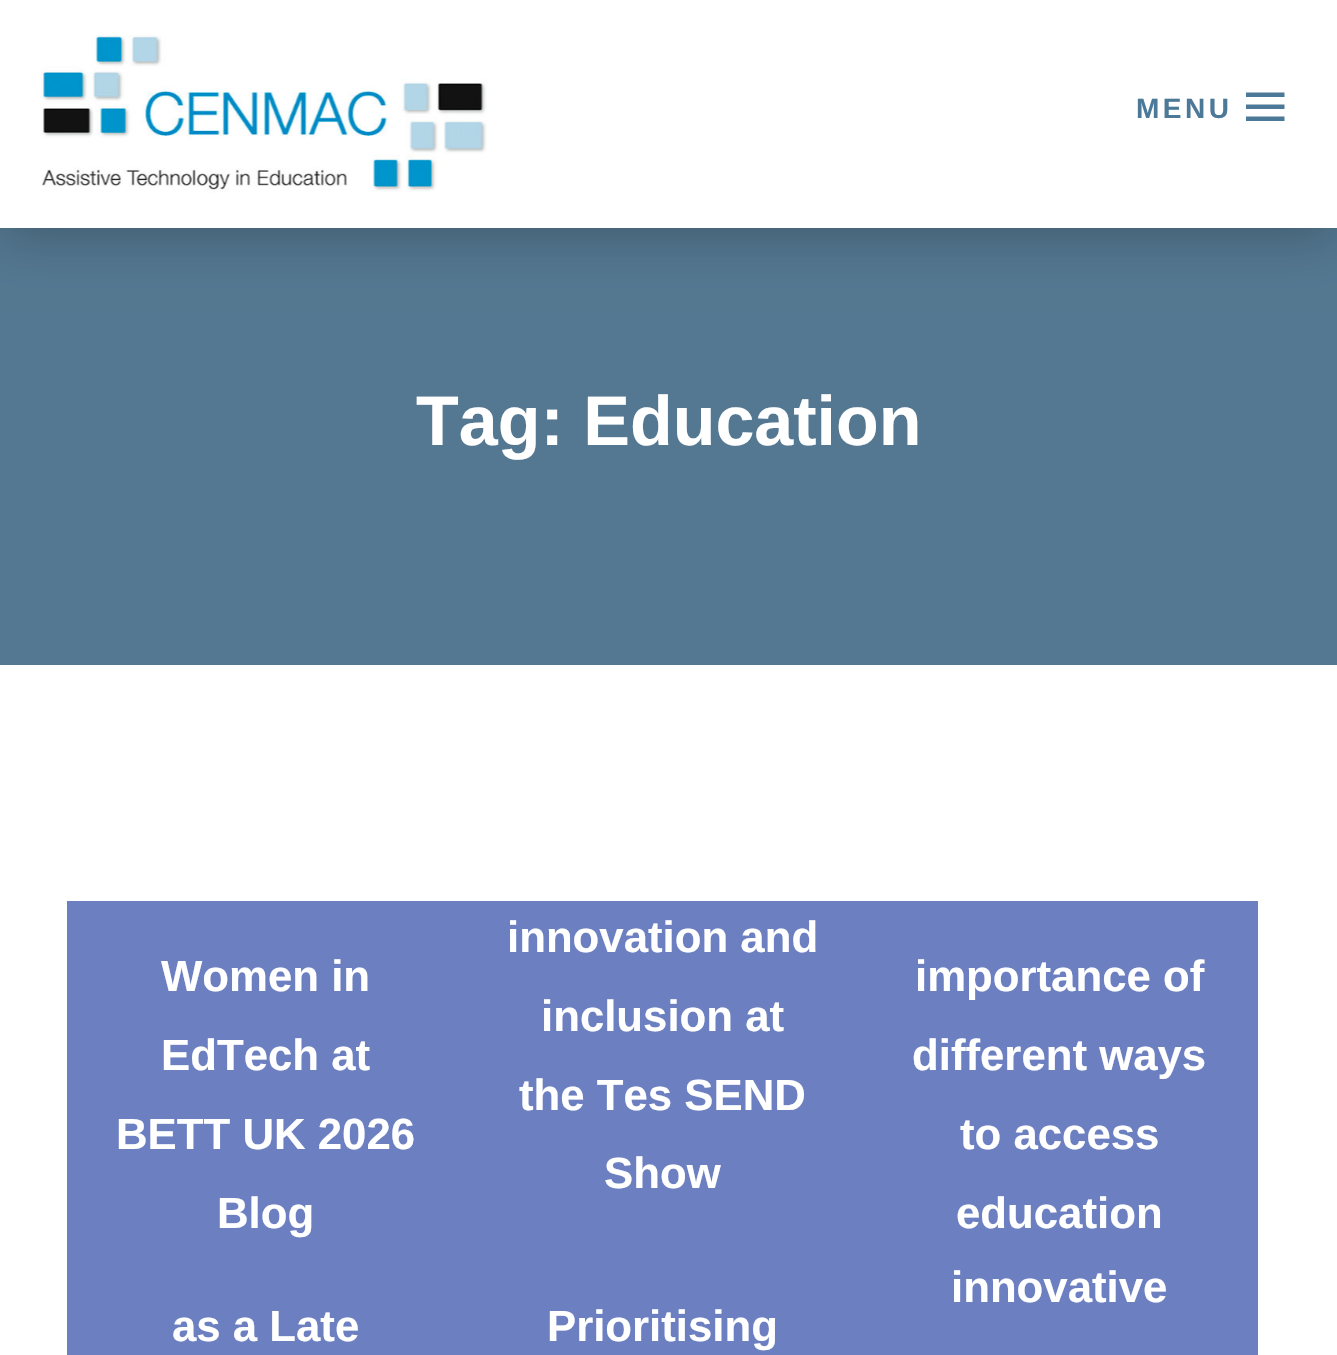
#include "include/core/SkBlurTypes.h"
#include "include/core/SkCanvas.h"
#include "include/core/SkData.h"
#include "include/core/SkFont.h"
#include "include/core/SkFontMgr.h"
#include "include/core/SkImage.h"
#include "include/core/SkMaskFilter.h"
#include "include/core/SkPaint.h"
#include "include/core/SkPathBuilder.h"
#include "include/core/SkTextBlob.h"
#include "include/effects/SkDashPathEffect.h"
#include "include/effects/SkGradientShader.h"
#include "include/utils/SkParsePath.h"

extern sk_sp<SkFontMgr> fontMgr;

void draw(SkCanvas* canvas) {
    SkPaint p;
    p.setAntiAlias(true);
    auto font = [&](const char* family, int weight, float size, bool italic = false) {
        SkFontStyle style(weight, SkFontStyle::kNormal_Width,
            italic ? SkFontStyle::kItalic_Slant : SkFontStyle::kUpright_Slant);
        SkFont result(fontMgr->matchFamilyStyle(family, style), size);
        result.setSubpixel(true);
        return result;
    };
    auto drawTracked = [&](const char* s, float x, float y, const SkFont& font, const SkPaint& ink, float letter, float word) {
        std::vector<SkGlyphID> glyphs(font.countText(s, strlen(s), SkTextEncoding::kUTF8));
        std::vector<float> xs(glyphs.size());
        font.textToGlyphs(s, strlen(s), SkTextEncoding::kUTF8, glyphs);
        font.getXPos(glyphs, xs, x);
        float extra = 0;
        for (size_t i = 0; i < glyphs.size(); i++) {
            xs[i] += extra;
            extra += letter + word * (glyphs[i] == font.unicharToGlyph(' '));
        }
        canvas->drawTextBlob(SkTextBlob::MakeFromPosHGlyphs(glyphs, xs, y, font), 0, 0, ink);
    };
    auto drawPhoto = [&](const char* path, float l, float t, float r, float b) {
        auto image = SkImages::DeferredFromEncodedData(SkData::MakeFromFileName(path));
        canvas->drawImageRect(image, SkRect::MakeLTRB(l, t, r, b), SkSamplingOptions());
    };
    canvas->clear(0xFF547891);
    p.setColor(0x40000000);
    p.setMaskFilter(SkMaskFilter::MakeBlur(kNormal_SkBlurStyle, 26));
    canvas->drawRect(SkRect::MakeLTRB(0, 7, 1337, 235), p);
    p.setMaskFilter(nullptr);
    p.setColor(0xFFFFFFFF);
    canvas->drawRect(SkRect::MakeLTRB(0, 0, 1337, 228), p);
    drawPhoto("media/1.png", 40, 35, 487, 193);
    auto font1 = font("Liberation Sans", 700, 28);
    p.setColor(0xFF4D7998);
    drawTracked("MENU", 1136, 118, font1, p, 3.5f, 0);
    canvas->drawPath(SkPathBuilder().moveTo(1246, 121).lineTo(1246, 116.5f).lineTo(1284.5f, 116.5f).lineTo(1284.5f, 121).close().moveTo(1246, 92.5f).lineTo(1284.5f, 92.5f).lineTo(1284.5f, 97).lineTo(1246, 97).close().moveTo(1246, 109).lineTo(1246, 104.5f).lineTo(1284.5f, 104.5f).lineTo(1284.5f, 109).close().detach(), p);
    auto font2 = font("Liberation Sans", 700, 70);
    p.setColor(0xFFFFFFFF);
    canvas->drawString("Tag: Education", 416, 445, font2, p);
    canvas->drawRect(SkRect::MakeLTRB(0, 665, 1337, 1355), p);
    p.setColor(0xFF6C80C1);
    canvas->drawRect(SkRect::MakeLTRB(67, 901, 1258, 1251), p);
    auto font3 = font("Liberation Sans", 700, 43.75f);
    p.setColor(0xFFFFFFFF);
    {
        const struct { const char* s; float x, y; } items[] = {
            {"Women in", 161, 991},
            {"EdTech at", 161, 1070},
            {"BETT UK 2026", 116, 1149},
            {"Blog", 217, 1228},
            {"innovation and", 507, 952},
            {"inclusion at", 541, 1031},
            {"the Tes SEND", 519, 1110},
            {"Show", 604, 1188},
            {"importance of", 915, 991},
            {"different ways", 912, 1070},
            {"to access", 960, 1149},
            {"education", 956, 1228},
        };
        for (auto [s, x, y] : items) {
            canvas->drawString(s, x, y, font3, p);
        }
    }
    p.setColor(0xFF6C80C1);
    canvas->drawRect(SkRect::MakeLTRB(67, 1251, 1258, 1355), p);
    p.setColor(0xFFFFFFFF);
    {
        const struct { const char* s; float x, y; } items[] = {
            {"innovative", 951, 1302},
            {"as a Late", 172, 1341},
            {"Prioritising", 547, 1341},
        };
        for (auto [s, x, y] : items) {
            canvas->drawString(s, x, y, font3, p);
        }
    }
}
